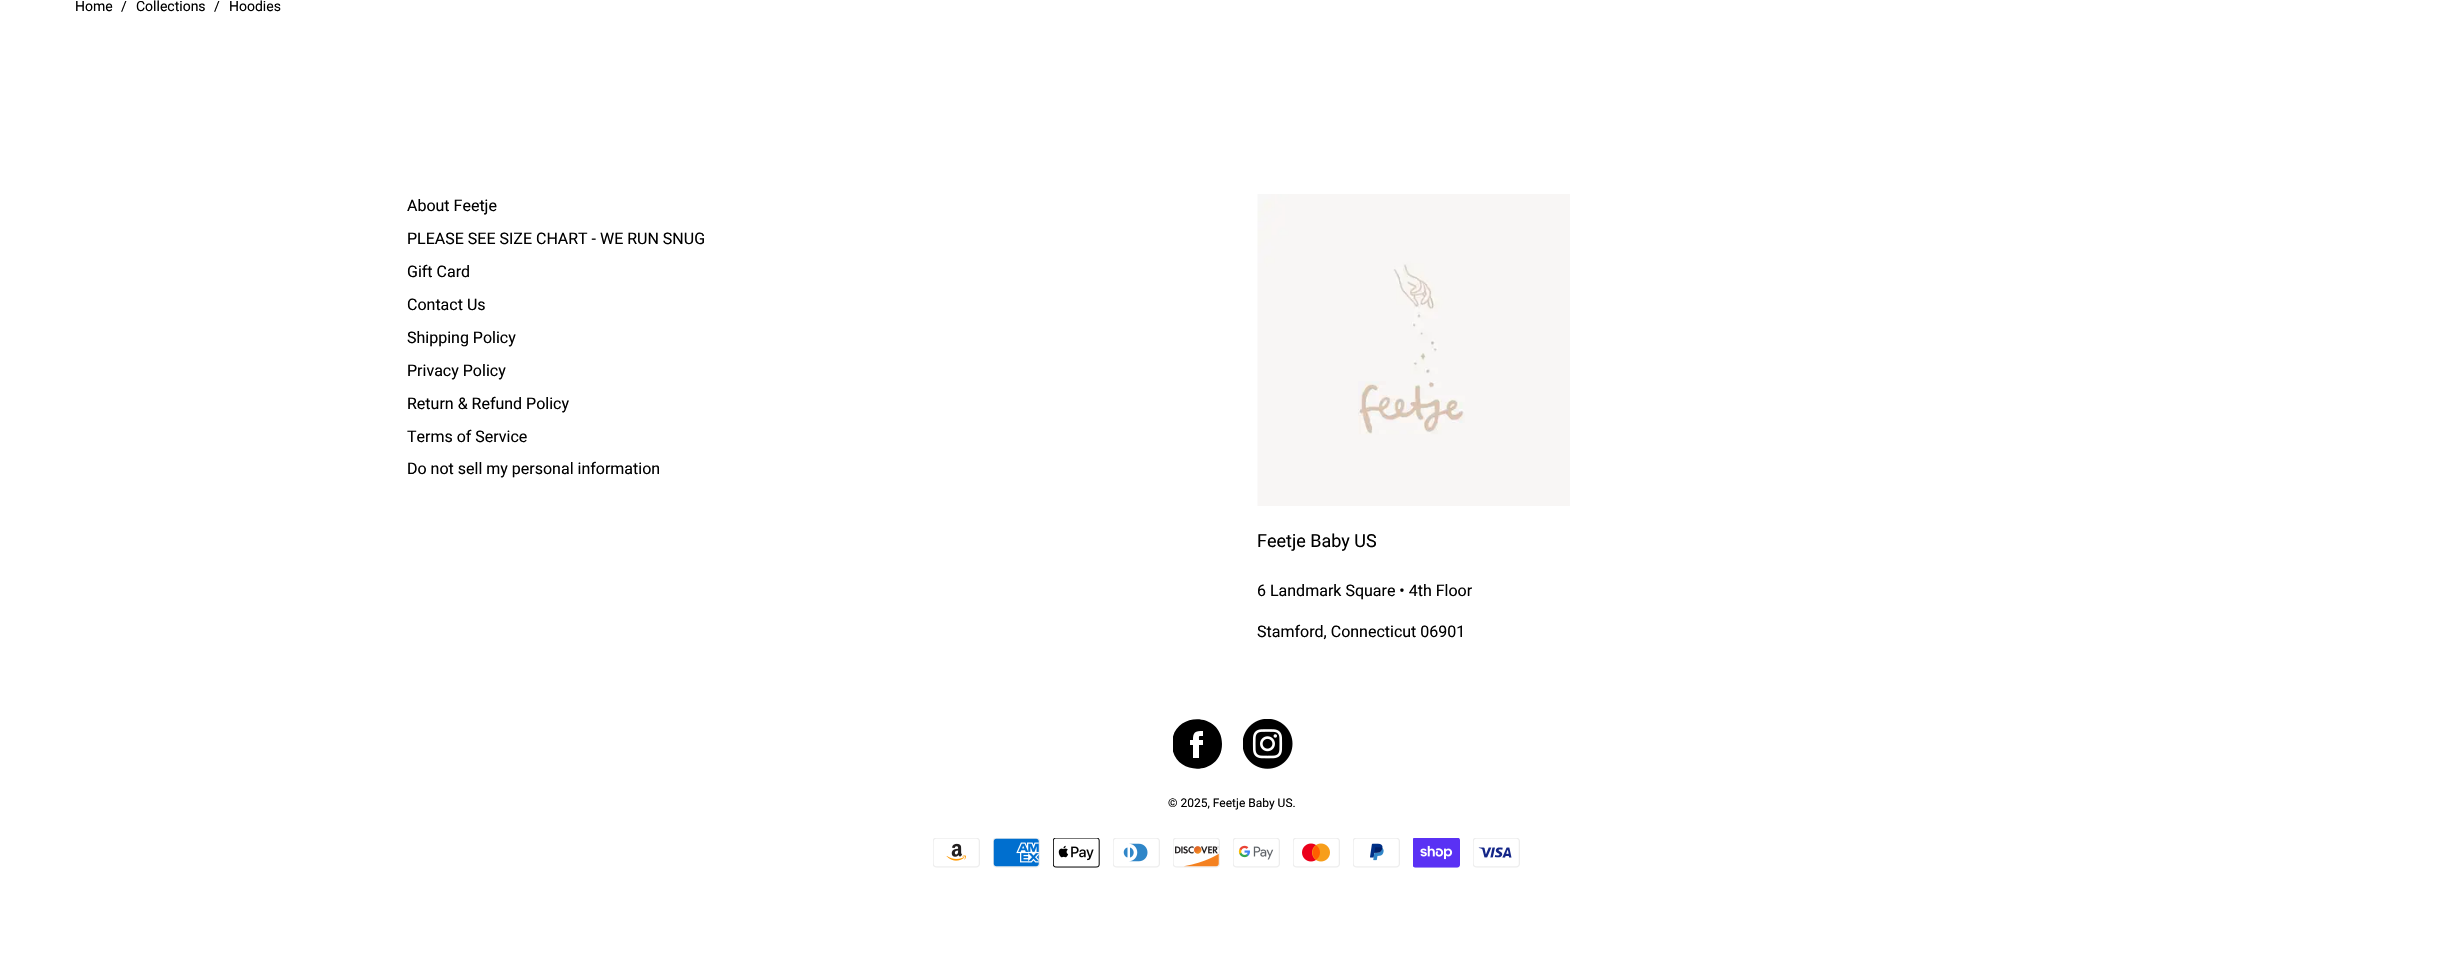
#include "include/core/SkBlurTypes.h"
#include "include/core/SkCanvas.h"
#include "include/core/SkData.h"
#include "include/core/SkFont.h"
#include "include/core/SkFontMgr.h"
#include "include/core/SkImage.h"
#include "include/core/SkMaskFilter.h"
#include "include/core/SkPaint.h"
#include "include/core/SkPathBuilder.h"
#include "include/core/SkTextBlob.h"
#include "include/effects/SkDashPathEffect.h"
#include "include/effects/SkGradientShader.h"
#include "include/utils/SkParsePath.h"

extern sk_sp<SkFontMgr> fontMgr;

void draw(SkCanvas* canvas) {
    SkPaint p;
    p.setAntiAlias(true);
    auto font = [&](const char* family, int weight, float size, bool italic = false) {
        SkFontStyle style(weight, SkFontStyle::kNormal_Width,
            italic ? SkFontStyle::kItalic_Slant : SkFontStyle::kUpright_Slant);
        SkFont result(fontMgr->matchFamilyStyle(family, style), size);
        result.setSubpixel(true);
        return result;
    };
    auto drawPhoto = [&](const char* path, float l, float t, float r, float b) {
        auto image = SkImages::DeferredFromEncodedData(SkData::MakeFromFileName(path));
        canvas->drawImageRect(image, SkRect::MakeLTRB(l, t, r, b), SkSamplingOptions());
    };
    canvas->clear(0xFFFFFFFF);
    auto font1 = font("Roboto", 400, 14);
    p.setColor(0xFF000000);
    {
        const struct { const char* s; float x, y; } items[] = {
            {"Home", 75, 11},
            {"/", 121, 11},
            {"Collections", 136, 11},
            {"/", 214, 11},
            {"Hoodies", 229, 11},
        };
        for (auto [s, x, y] : items) {
            canvas->drawString(s, x, y, font1, p);
        }
    }
    auto font2 = font("Roboto", 400, 16);
    {
        const struct { const char* s; float x, y; } items[] = {
            {"About Feetje", 407, 211},
            {"PLEASE SEE SIZE CHART - WE RUN SNUG", 407, 244},
            {"Gift Card", 407, 277},
            {"Contact Us", 407, 310},
            {"Shipping Policy", 407, 343},
            {"Privacy Policy", 407, 376},
            {"Return & Refund Policy", 407, 409},
            {"Terms of Service", 407, 442},
            {"Do not sell my personal information", 407, 474},
        };
        for (auto [s, x, y] : items) {
            canvas->drawString(s, x, y, font2, p);
        }
    }
    drawPhoto("media/1.png", 1257, 194, 1570, 506);
    auto font3 = font("Roboto", 400, 18);
    canvas->drawString("Feetje Baby US", 1257, 547, font3, p);
    canvas->drawString("6 Landmark Square • 4th Floor", 1257, 596, font2, p);
    canvas->drawString("Stamford, Connecticut 06901", 1257, 637, font2, p);
    canvas->save();
    canvas->clipRect(SkRect::MakeLTRB(1173, 719, 1223, 769));
    canvas->drawPath(SkPathBuilder().moveTo(1172, 744).cubicTo(1172, 711, 1222, 711, 1222, 744).cubicTo(1222, 777, 1172, 777, 1172, 744).close().moveTo(1199, 758).lineTo(1199, 745).lineTo(1203, 745).lineTo(1203, 740).lineTo(1199, 740).cubicTo(1199, 736, 1198, 736, 1203, 736).lineTo(1203, 731).cubicTo(1195, 731, 1193, 732, 1193, 740).lineTo(1190, 740).lineTo(1190, 745).lineTo(1193, 745).lineTo(1193, 758).close().detach(), p);
    canvas->restore();
    drawPhoto("media/2.png", 1243, 719, 1293, 769);
    auto font4 = font("Roboto", 400, 12);
    canvas->drawString("© 2025, Feetje Baby US.", 1168, 807, font4, p);
    drawPhoto("media/3.png", 933, 838, 980, 868);
    drawPhoto("media/4.png", 993, 838, 1040, 868);
    drawPhoto("media/5.png", 1053, 838, 1100, 868);
    drawPhoto("media/6.png", 1113, 838, 1160, 868);
    drawPhoto("media/7.png", 1173, 838, 1220, 868);
    drawPhoto("media/8.png", 1233, 838, 1280, 868);
    drawPhoto("media/9.png", 1293, 838, 1340, 868);
    drawPhoto("media/10.png", 1353, 838, 1400, 868);
    drawPhoto("media/11.png", 1413, 838, 1460, 868);
    drawPhoto("media/12.png", 1473, 838, 1520, 868);
}
